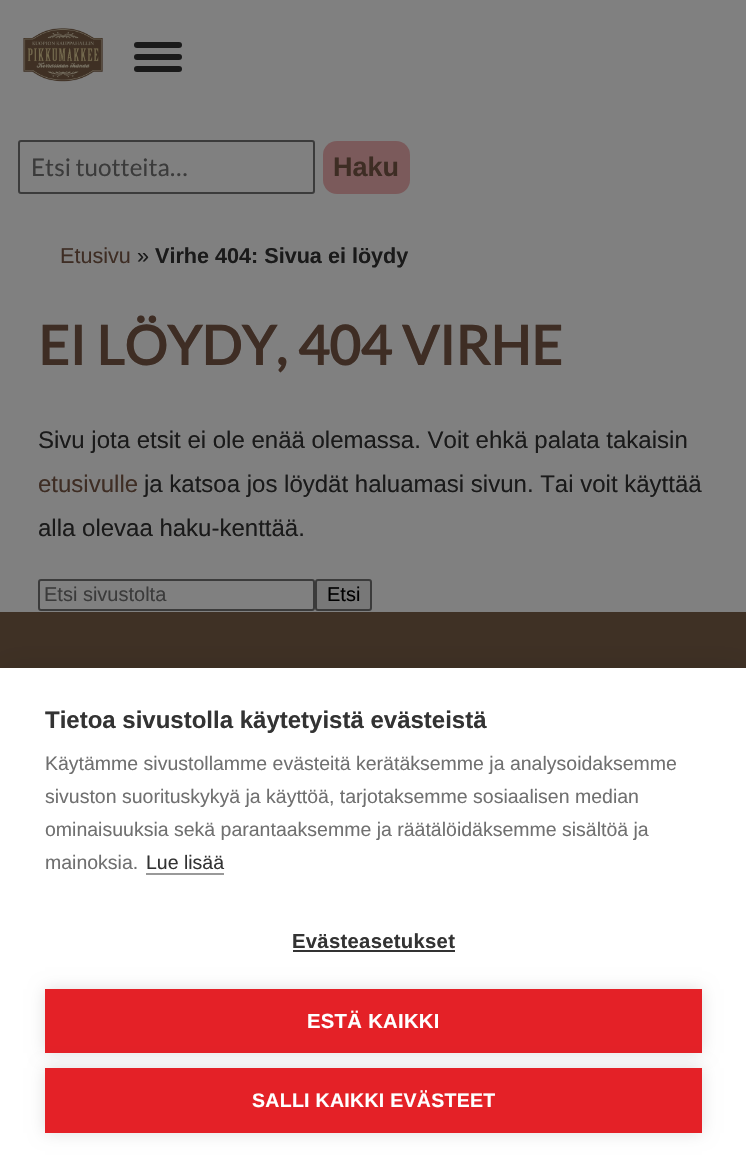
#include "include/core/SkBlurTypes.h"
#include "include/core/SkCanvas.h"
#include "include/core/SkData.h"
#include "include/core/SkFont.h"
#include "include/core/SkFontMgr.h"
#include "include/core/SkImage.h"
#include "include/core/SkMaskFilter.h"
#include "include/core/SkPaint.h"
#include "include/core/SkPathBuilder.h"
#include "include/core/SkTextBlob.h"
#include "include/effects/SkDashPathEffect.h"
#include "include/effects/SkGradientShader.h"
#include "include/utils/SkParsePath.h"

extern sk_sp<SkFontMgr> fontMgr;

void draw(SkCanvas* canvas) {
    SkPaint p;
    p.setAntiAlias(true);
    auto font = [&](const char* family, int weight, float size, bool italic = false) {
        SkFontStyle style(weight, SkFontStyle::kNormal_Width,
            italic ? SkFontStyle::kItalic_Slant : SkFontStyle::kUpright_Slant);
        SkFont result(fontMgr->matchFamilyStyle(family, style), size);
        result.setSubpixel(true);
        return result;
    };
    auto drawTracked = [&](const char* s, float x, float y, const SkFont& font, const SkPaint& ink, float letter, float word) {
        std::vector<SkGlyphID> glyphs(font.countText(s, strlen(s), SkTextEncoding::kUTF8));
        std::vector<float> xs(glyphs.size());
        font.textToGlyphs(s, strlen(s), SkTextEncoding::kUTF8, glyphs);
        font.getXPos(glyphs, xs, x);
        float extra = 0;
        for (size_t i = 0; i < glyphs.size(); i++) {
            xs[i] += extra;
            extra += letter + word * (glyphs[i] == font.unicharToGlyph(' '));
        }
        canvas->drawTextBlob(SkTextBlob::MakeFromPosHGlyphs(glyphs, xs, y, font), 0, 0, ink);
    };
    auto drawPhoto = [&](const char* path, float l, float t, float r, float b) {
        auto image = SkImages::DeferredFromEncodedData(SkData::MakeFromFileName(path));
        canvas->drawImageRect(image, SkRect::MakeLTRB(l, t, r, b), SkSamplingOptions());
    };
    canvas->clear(0xFF808080);
    drawPhoto("media/1.png", 23, 28, 103, 82);
    p.setColor(0xFF1A1A1A);
    canvas->drawRoundRect(SkRect::MakeLTRB(134, 42, 182, 48), 3, 3, p);
    canvas->drawRoundRect(SkRect::MakeLTRB(134, 54, 182, 60), 3, 3, p);
    canvas->drawRoundRect(SkRect::MakeLTRB(134, 66, 182, 72), 3, 3, p);
    p.setStyle(SkPaint::kStroke_Style);
    p.setStrokeWidth(2);
    p.setColor(0xFF3B3B3B);
    canvas->drawRoundRect(SkRect::MakeLTRB(19, 141, 314, 193), 2, 2, p);
    auto font1 = font("Lato", 400, 24.25f);
    p.setStyle(SkPaint::kFill_Style);
    canvas->drawString("Etsi tuotteita…", 31, 176, font1, p);
    p.setColor(0xFF7B5A5B);
    canvas->drawRoundRect(SkRect::MakeLTRB(323, 141, 410, 194), 14, 14, p);
    auto font2 = font("Liberation Sans", 700, 27);
    p.setColor(0xFF3E2D24);
    canvas->drawString("Haku", 333, 176, font2, p);
    auto font3 = font("Liberation Sans", 400, 21.6f);
    canvas->drawString("Etusivu", 60, 263, font3, p);
    p.setColor(0xFF1A1A1A);
    canvas->drawString("»", 137, 263, font3, p);
    auto font4 = font("Liberation Sans", 700, 21.6f);
    canvas->drawString("Virhe 404: Sivua ei löydy", 155, 263, font4, p);
    auto font5 = font("Lato", 700, 54);
    p.setColor(0xFF3E2D24);
    canvas->drawString("EI LÖYDY, 404 VIRHE", 38, 365, font5, p);
    auto font6 = font("Liberation Sans", 400, 24);
    p.setColor(0xFF1A1A1A);
    canvas->drawString("Sivu jota etsit ei ole enää olemassa. Voit ehkä palata takaisin", 38, 448, font6, p);
    p.setColor(0xFF3E2D24);
    canvas->drawString("etusivulle", 38, 492, font6, p);
    p.setColor(0xFF1A1A1A);
    canvas->drawString("ja katsoa jos löydät haluamasi sivun. Tai voit käyttää", 144, 492, font6, p);
    canvas->drawString("alla olevaa haku-kenttää.", 38, 536, font6, p);
    p.setStyle(SkPaint::kStroke_Style);
    p.setColor(0xFF3B3B3B);
    canvas->drawRoundRect(SkRect::MakeLTRB(39, 580, 314, 610), 2, 2, p);
    auto font7 = font("Liberation Sans", 400, 20);
    p.setStyle(SkPaint::kFill_Style);
    canvas->drawString("Etsi sivustolta", 44, 601, font7, p);
    p.setColor(0xFF787878);
    canvas->drawRoundRect(SkRect::MakeLTRB(316, 580, 371, 610), 2, 2, p);
    p.setStyle(SkPaint::kStroke_Style);
    p.setColor(0xFF3B3B3B);
    canvas->drawRoundRect(SkRect::MakeLTRB(316, 580, 371, 610), 2, 2, p);
    p.setStyle(SkPaint::kFill_Style);
    p.setColor(0xFF000000);
    canvas->drawString("Etsi", 327, 601, font7, p);
    p.setColor(0xFF3F3125);
    canvas->drawRect(SkRect::MakeLTRB(0, 612, 746, 668), p);
    p.setColor(0x1A000000);
    p.setMaskFilter(SkMaskFilter::MakeBlur(kNormal_SkBlurStyle, 15));
    canvas->drawRect(SkRect::MakeLTRB(0, 668, 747, 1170), p);
    p.setMaskFilter(nullptr);
    p.setColor(0xFFFFFFFF);
    canvas->drawRect(SkRect::MakeLTRB(0, 668, 746, 1169), p);
    auto font8 = font("Liberation Sans", 700, 24);
    p.setColor(0xFF333333);
    canvas->drawString("Tietoa sivustolla käytetyistä evästeistä", 45, 728, font8, p);
    auto font9 = font("Liberation Sans", 400, 19.5f);
    p.setColor(0xFF707070);
    {
        const struct { const char* s; float x, y; } items[] = {
            {"Käytämme sivustollamme evästeitä kerätäksemme ja analysoidaksemme", 45, 770},
            {"sivuston suorituskykyä ja käyttöä, tarjotaksemme sosiaalisen median", 45, 803},
            {"ominaisuuksia sekä parantaaksemme ja räätälöidäksemme sisältöä ja", 45, 836},
            {"mainoksia.", 45, 869},
        };
        for (auto [s, x, y] : items) {
            canvas->drawString(s, x, y, font9, p);
        }
    }
    p.setColor(0xFF333333);
    canvas->drawString("Lue lisää", 146, 869, font9, p);
    p.setColor(0xFF999999);
    canvas->drawRect(SkRect::MakeLTRB(146, 873, 224, 875), p);
    auto font10 = font("Liberation Sans", 700, 20.25f);
    p.setColor(0xFF333333);
    drawTracked("Evästeasetukset", 292, 948, font10, p, 0.3f, 0);
    canvas->drawRect(SkRect::MakeLTRB(293, 950, 455, 952), p);
    p.setColor(0x1F000000);
    p.setMaskFilter(SkMaskFilter::MakeBlur(kNormal_SkBlurStyle, 7.5f));
    canvas->drawRect(SkRect::MakeLTRB(45, 989, 702, 1053), p);
    p.setMaskFilter(nullptr);
    p.setColor(0xFFE42127);
    canvas->drawRect(SkRect::MakeLTRB(45, 989, 702, 1053), p);
    p.setColor(0xFFFFFFFF);
    drawTracked("ESTÄ KAIKKI", 307, 1028, font10, p, 0.3f, 0);
    p.setColor(0x1F000000);
    p.setMaskFilter(SkMaskFilter::MakeBlur(kNormal_SkBlurStyle, 7.5f));
    canvas->drawRect(SkRect::MakeLTRB(45, 1068, 702, 1133), p);
    p.setMaskFilter(nullptr);
    p.setColor(0xFFE42127);
    canvas->drawRect(SkRect::MakeLTRB(45, 1068, 702, 1133), p);
    auto font11 = font("Liberation Sans", 700, 19.5f);
    p.setColor(0xFFFFFFFF);
    drawTracked("SALLI KAIKKI EVÄSTEET", 252, 1107, font11, p, 0.3f, 0);
}
